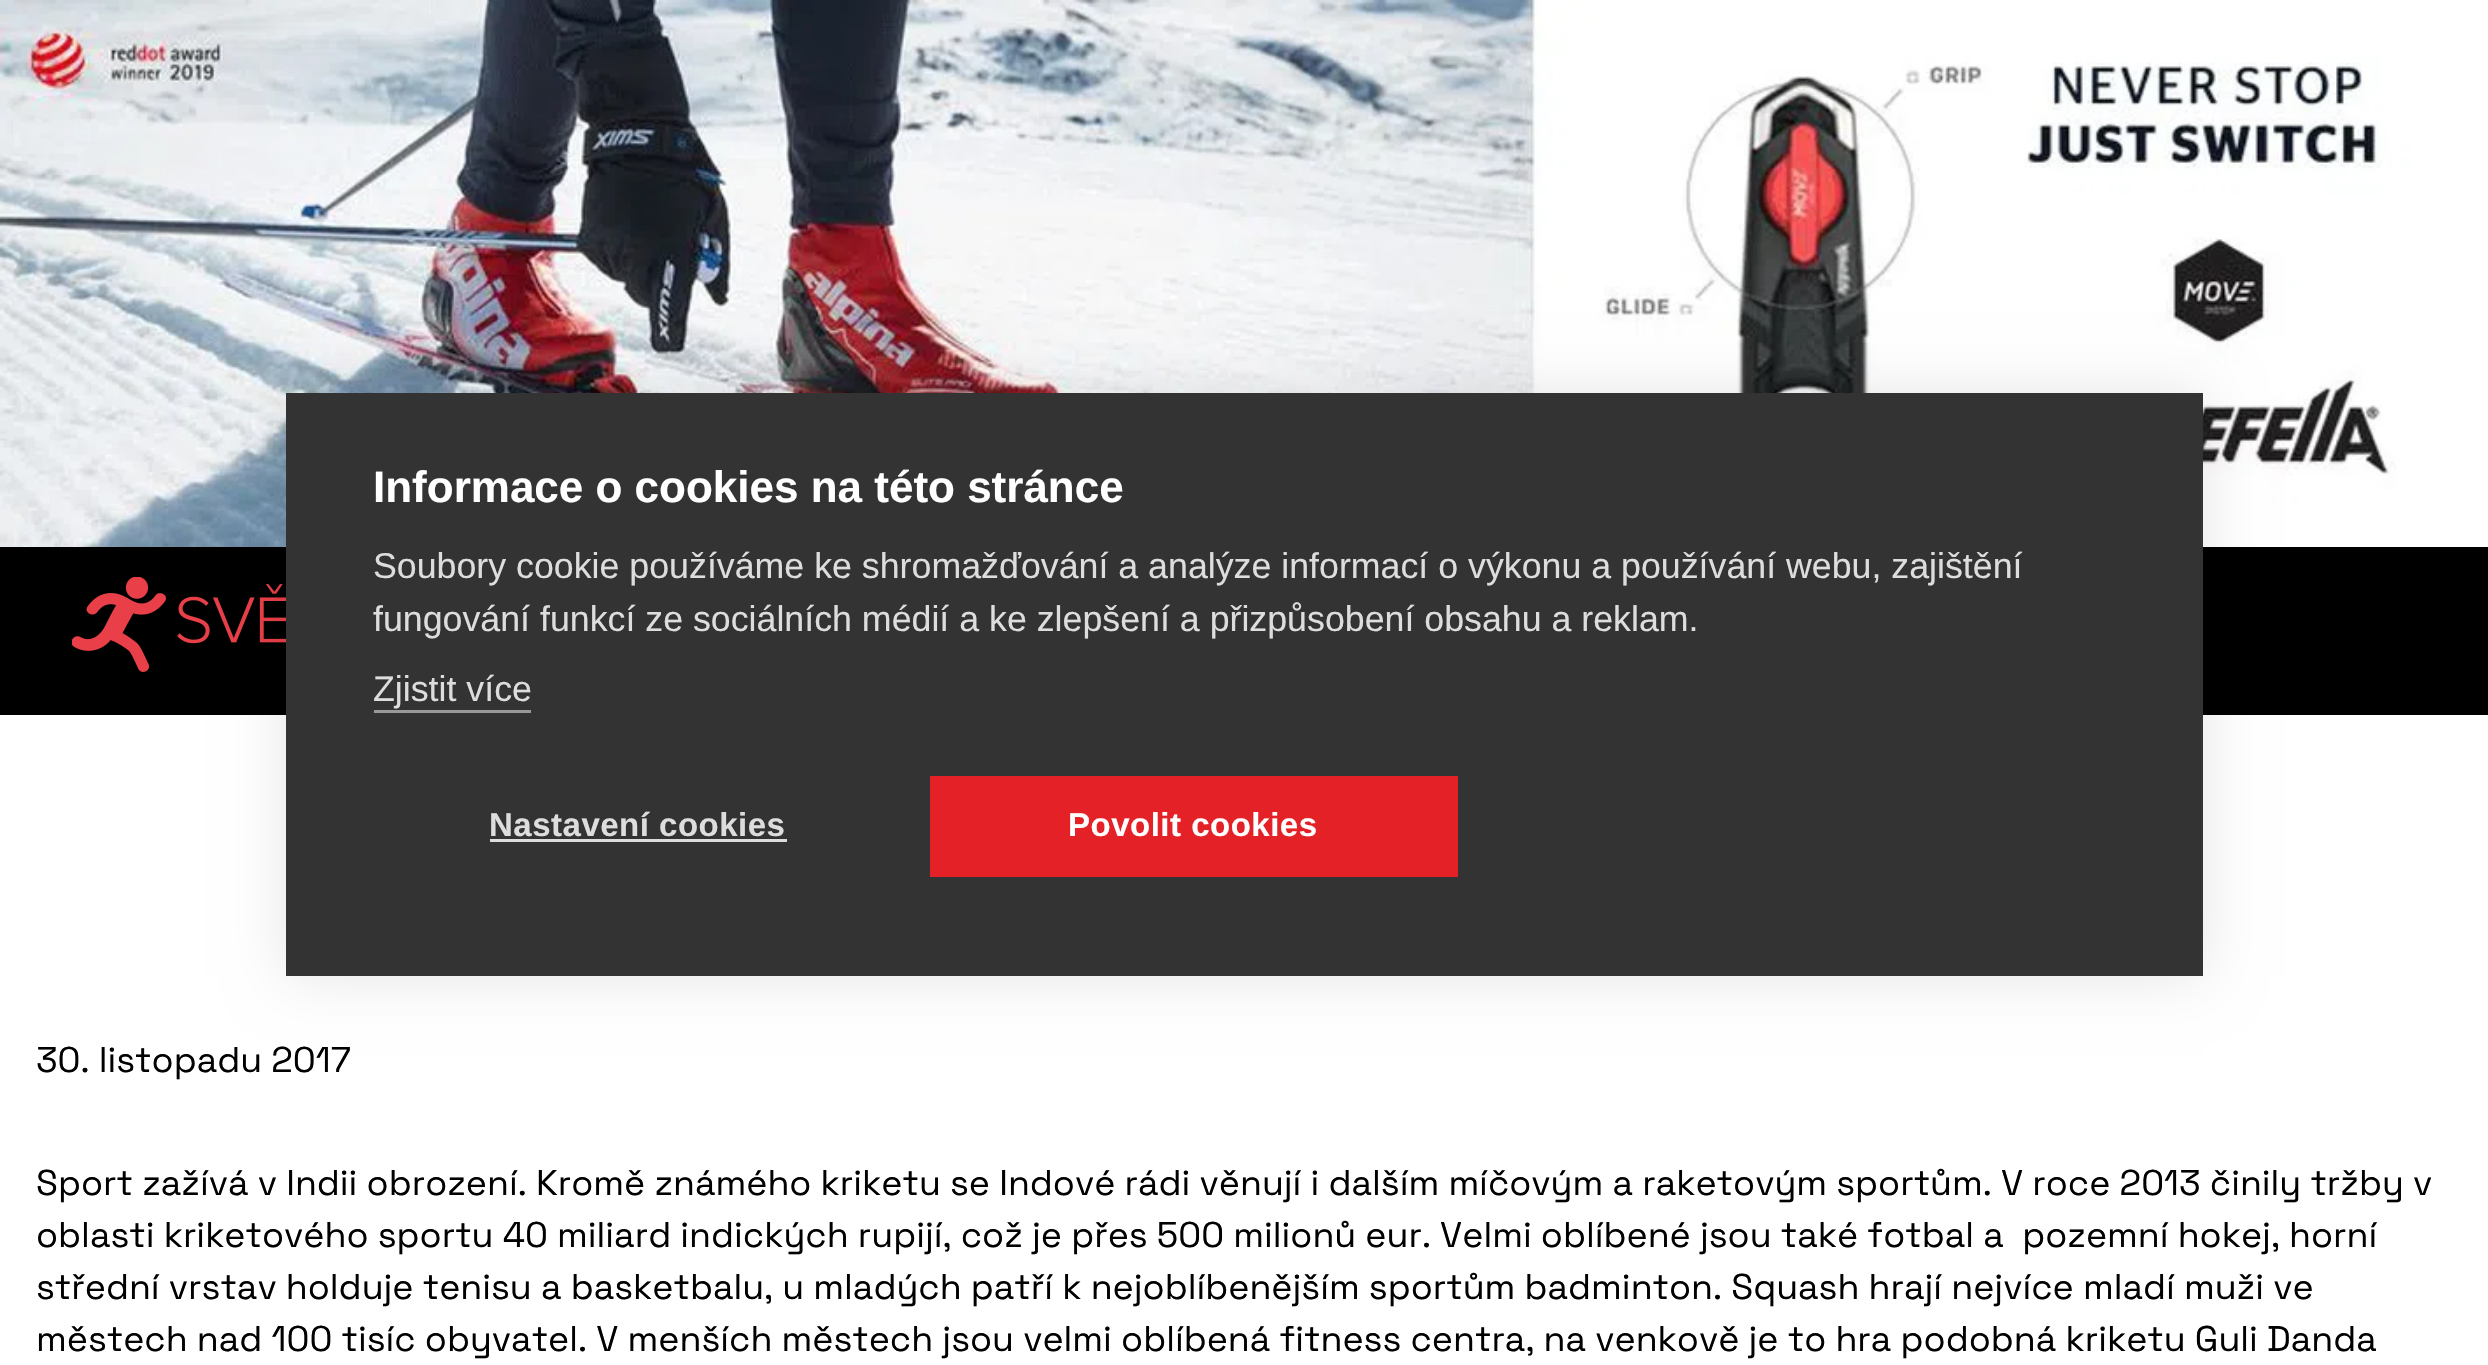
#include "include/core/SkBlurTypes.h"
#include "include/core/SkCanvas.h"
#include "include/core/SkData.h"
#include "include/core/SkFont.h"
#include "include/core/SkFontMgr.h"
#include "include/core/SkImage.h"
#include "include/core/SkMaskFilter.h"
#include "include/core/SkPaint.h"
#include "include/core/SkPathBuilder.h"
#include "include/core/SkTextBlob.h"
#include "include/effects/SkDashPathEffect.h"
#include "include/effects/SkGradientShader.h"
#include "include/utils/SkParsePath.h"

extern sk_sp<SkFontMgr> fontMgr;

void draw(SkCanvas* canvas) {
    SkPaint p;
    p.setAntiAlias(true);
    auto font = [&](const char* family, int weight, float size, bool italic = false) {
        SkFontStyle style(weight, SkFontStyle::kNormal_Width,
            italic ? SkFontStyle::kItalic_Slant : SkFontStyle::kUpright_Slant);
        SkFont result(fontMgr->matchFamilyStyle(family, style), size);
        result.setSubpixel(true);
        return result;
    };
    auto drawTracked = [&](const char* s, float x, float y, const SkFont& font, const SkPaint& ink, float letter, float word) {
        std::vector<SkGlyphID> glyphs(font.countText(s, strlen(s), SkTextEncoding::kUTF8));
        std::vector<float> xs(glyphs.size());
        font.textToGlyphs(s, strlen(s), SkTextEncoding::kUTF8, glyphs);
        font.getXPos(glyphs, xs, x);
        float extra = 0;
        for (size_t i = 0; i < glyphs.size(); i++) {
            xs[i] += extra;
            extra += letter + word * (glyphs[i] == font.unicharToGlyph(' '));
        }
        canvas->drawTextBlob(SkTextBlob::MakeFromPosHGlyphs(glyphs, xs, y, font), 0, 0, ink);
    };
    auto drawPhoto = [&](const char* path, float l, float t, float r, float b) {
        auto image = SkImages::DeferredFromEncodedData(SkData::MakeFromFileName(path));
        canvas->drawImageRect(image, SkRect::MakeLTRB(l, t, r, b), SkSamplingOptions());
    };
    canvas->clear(0xFFFFFFFF);
    drawPhoto("media/1.png", 0, 0, 2488, 547);
    p.setColor(0xFF000000);
    canvas->drawRect(SkRect::MakeLTRB(0, 547, 2488, 715), p);
    drawPhoto("media/2.png", 72, 577, 286, 672);
    p.setColor(0x1A000000);
    p.setMaskFilter(SkMaskFilter::MakeBlur(kNormal_SkBlurStyle, 27.5f));
    canvas->drawRect(SkRect::MakeLTRB(286, 393, 2203, 976), p);
    p.setMaskFilter(nullptr);
    p.setColor(0xFF333333);
    canvas->drawRect(SkRect::MakeLTRB(286, 393, 2203, 976), p);
    auto font1 = font("Liberation Sans", 700, 44);
    p.setColor(0xFFFFFFFF);
    canvas->drawString("Informace o cookies na této stránce", 373, 502, font1, p);
    auto font2 = font("Liberation Sans", 400, 35.75f);
    p.setColor(0xFFDDDDDD);
    {
        const struct { const char* s; float x, y; } items[] = {
            {"Soubory cookie používáme ke shromažďování a analýze informací o výkonu a používání webu, zajištění", 373, 578},
            {"fungování funkcí ze sociálních médií a ke zlepšení a přizpůsobení obsahu a reklam.", 373, 631},
            {"Zjistit více", 373, 701},
        };
        for (auto [s, x, y] : items) {
            canvas->drawString(s, x, y, font2, p);
        }
    }
    p.setColor(0xFF999999);
    canvas->drawRect(SkRect::MakeLTRB(374, 710, 531, 713), p);
    auto font3 = font("Liberation Sans", 700, 33);
    p.setColor(0xFFDDDDDD);
    drawTracked("Nastavení cookies", 489, 836, font3, p, 0.5f, 0);
    canvas->drawRect(SkRect::MakeLTRB(490, 839, 787, 842), p);
    p.setColor(0xFFE42127);
    canvas->drawRect(SkRect::MakeLTRB(930, 776, 1458, 877), p);
    p.setColor(0xFFFFFFFF);
    drawTracked("Povolit cookies", 1068, 836, font3, p, 0.5f, 0);
    auto font4 = font("Space Grotesk", 400, 35.75f);
    p.setColor(0xFF000000);
    {
        const struct { const char* s; float x, y; } items[] = {
            {"30. listopadu 2017", 36, 1072},
            {"Sport zažívá v Indii obrození. Kromě známého kriketu se Indové rádi věnují i dalším míčovým a raketovým sportům. V roce 2013 činily tržby v", 36, 1195},
            {"oblasti kriketového sportu 40 miliard indických rupijí, což je přes 500 milionů eur. Velmi oblíbené jsou také fotbal a  pozemní hokej, horní", 36, 1247},
            {"střední vrstav holduje tenisu a basketbalu, u mladých patří k nejoblíbenějším sportům badminton. Squash hrají nejvíce mladí muži ve", 36, 1299},
            {"městech nad 100 tisíc obyvatel. V menších městech jsou velmi oblíbená fitness centra, na venkově je to hra podobná kriketu Guli Danda", 36, 1351},
        };
        for (auto [s, x, y] : items) {
            canvas->drawString(s, x, y, font4, p);
        }
    }
}
